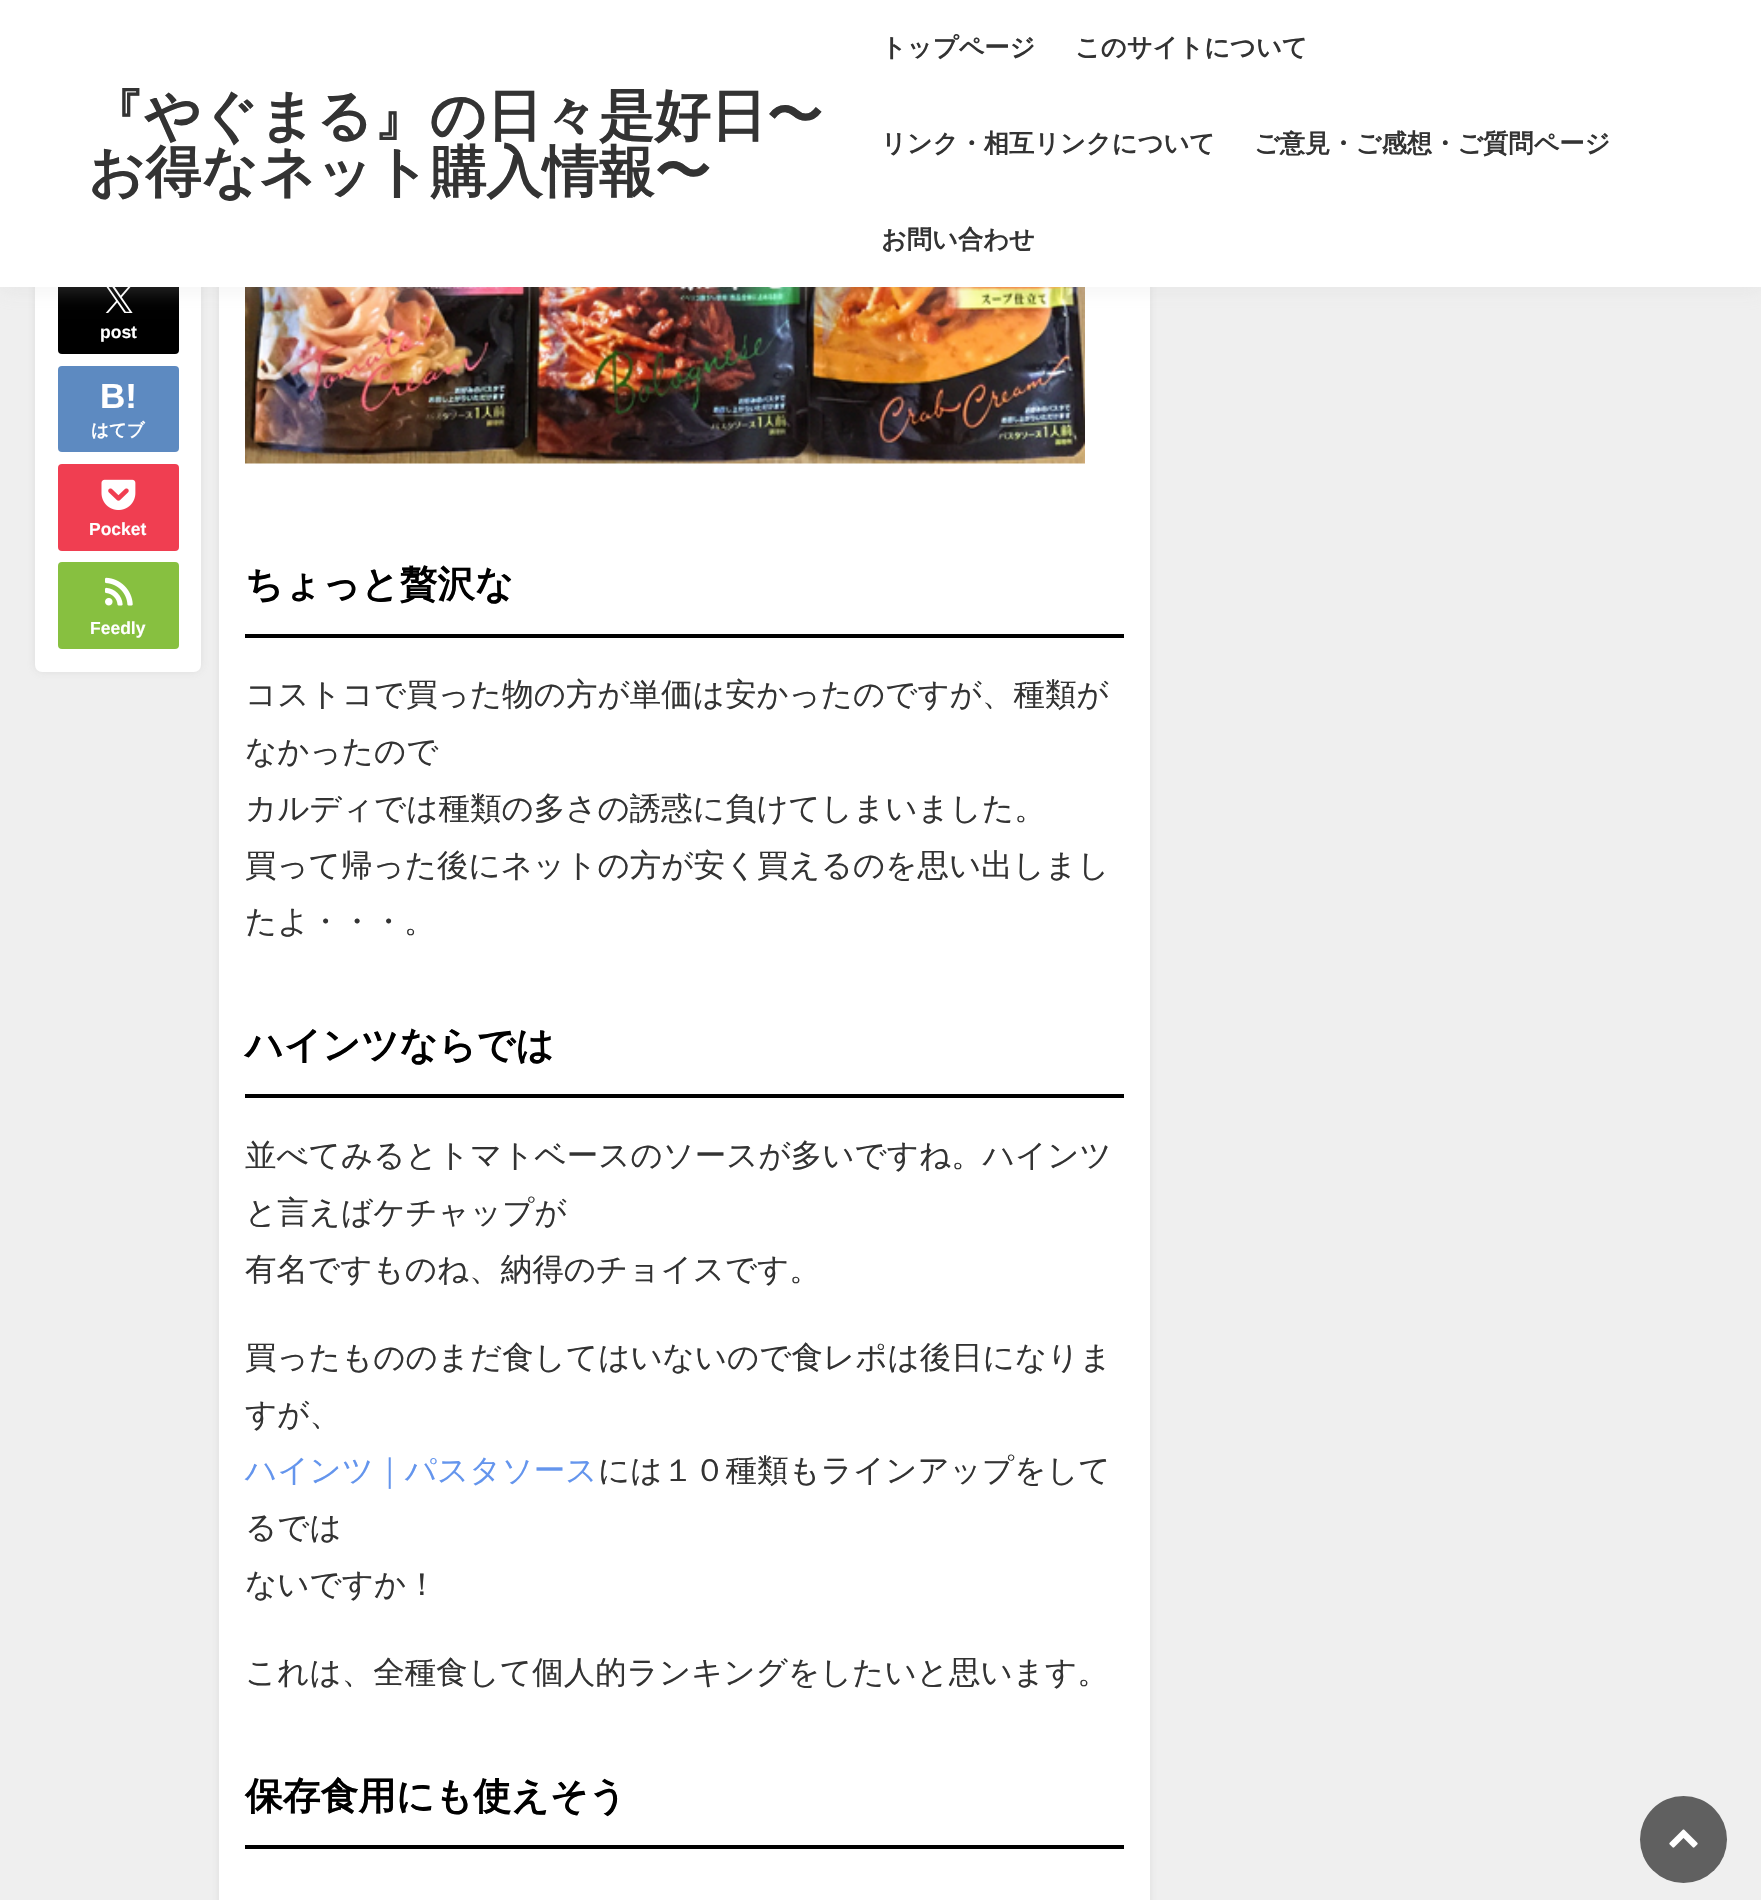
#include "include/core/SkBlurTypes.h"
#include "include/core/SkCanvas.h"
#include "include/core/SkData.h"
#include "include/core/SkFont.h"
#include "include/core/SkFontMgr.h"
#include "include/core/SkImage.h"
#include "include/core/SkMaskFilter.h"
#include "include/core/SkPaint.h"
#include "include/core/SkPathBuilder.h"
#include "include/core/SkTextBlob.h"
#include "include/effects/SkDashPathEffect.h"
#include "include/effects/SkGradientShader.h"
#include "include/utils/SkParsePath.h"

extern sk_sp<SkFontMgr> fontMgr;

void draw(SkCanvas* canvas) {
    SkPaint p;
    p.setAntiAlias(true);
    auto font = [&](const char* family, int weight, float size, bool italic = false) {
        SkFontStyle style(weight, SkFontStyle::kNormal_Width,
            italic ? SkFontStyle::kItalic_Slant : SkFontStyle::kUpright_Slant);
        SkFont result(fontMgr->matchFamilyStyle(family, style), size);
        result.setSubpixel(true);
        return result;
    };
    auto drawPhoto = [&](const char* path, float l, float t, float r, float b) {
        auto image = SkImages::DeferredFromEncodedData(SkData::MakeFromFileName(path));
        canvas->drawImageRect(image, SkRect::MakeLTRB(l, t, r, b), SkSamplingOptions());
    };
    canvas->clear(0xFFEFEFEF);
    p.setColor(0x33969696);
    p.setMaskFilter(SkMaskFilter::MakeBlur(kNormal_SkBlurStyle, 4.5f));
    canvas->drawRoundRect(SkRect::MakeLTRB(35, 149, 201, 672), 7, 7, p);
    p.setMaskFilter(nullptr);
    p.setColor(0xFFFFFFFF);
    canvas->drawRoundRect(SkRect::MakeLTRB(35, 149, 201, 672), 7, 7, p);
    p.setColor(0xFF000000);
    canvas->drawRoundRect(SkRect::MakeLTRB(58, 270, 179, 354), 4, 4, p);
    drawPhoto("media/1.png", 105, 287, 133, 313);
    p.setColor(0x33969696);
    p.setMaskFilter(SkMaskFilter::MakeBlur(kNormal_SkBlurStyle, 4.5f));
    canvas->drawRoundRect(SkRect::MakeLTRB(219, -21, 1150, 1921), 7, 7, p);
    p.setMaskFilter(nullptr);
    p.setColor(0xFFFFFFFF);
    canvas->drawRect(SkRect::MakeLTRB(219, 287, 1150, 1900), p);
    drawPhoto("media/4.png", 245, 287, 1085, 464);
    p.setColor(0x33C8C8C8);
    p.setMaskFilter(SkMaskFilter::MakeBlur(kNormal_SkBlurStyle, 9));
    canvas->drawRect(SkRect::MakeLTRB(0, 5, 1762, 292), p);
    p.setMaskFilter(nullptr);
    p.setColor(0xFFFFFFFF);
    canvas->drawRect(SkRect::MakeLTRB(0, 0, 1761, 287), p);
    auto font1 = font("WenQuanYi Zen Hei", 700, 56);
    p.setColor(0xFF333333);
    canvas->drawString("『やぐまる』の日々是好日〜", 88, 135, font1, p);
    canvas->drawString("お得なネット購入情報〜", 88, 191, font1, p);
    auto font2 = font("WenQuanYi Zen Hei", 700, 25.25f);
    {
        const struct { const char* s; float x, y; } items[] = {
            {"トップページ", 881, 56},
            {"このサイトについて", 1075, 56},
            {"リンク・相互リンクについて", 881, 152},
            {"ご意見・ご感想・ご質問ページ", 1254, 152},
            {"お問い合わせ", 881, 248},
        };
        for (auto [s, x, y] : items) {
            canvas->drawString(s, x, y, font2, p);
        }
    }
    auto font3 = font("Liberation Sans", 700, 17.5f);
    p.setColor(0xFFFFFFFF);
    canvas->drawString("post", 100, 338, font3, p);
    p.setColor(0xFF5D8AC1);
    canvas->drawRoundRect(SkRect::MakeLTRB(58, 366, 179, 452), 4, 4, p);
    auto font4 = font("Liberation Sans", 700, 35);
    p.setColor(0xFFFFFFFF);
    canvas->drawString("B!", 100, 408, font4, p);
    auto font5 = font("WenQuanYi Zen Hei", 700, 17.5f);
    canvas->drawString("はてブ", 91, 436, font5, p);
    p.setColor(0xFFF03E51);
    canvas->drawRoundRect(SkRect::MakeLTRB(58, 464, 179, 551), 4, 4, p);
    drawPhoto("media/2.png", 101, 479, 136, 510);
    p.setColor(0xFFFFFFFF);
    canvas->drawString("Pocket", 89, 535, font3, p);
    p.setColor(0xFF87C040);
    canvas->drawRoundRect(SkRect::MakeLTRB(58, 562, 179, 649), 4, 4, p);
    drawPhoto("media/3.png", 105, 577, 133, 606);
    p.setColor(0xFFFFFFFF);
    canvas->drawString("Feedly", 90, 634, font3, p);
    p.setColor(0xFF000000);
    canvas->drawRect(SkRect::MakeLTRB(245, 634, 1124, 638), p);
    auto font6 = font("WenQuanYi Zen Hei", 700, 37.75f);
    canvas->drawString("ちょっと贅沢な", 245, 597, font6, p);
    auto font7 = font("WenQuanYi Zen Hei", 500, 31.5f);
    p.setColor(0xFF333333);
    {
        const struct { const char* s; float x, y; } items[] = {
            {"コストコで買った物の方が単価は安かったのですが、種類が", 245, 705},
            {"なかったので", 245, 762},
            {"カルディでは種類の多さの誘惑に負けてしまいました。", 245, 819},
            {"買って帰った後にネットの方が安く買えるのを思い出しまし", 245, 876},
            {"たよ・・・。", 245, 932},
        };
        for (auto [s, x, y] : items) {
            canvas->drawString(s, x, y, font7, p);
        }
    }
    p.setColor(0xFF000000);
    canvas->drawRect(SkRect::MakeLTRB(245, 1094, 1124, 1098), p);
    canvas->drawString("ハインツならでは", 245, 1058, font6, p);
    p.setColor(0xFF333333);
    {
        const struct { const char* s; float x, y; } items[] = {
            {"並べてみるとトマトベースのソースが多いですね。ハインツ", 245, 1166},
            {"と言えばケチャップが", 245, 1223},
            {"有名ですものね、納得のチョイスです。", 245, 1280},
            {"買ったもののまだ食してはいないので食レポは後日になりま", 245, 1368},
            {"すが、", 245, 1425},
        };
        for (auto [s, x, y] : items) {
            canvas->drawString(s, x, y, font7, p);
        }
    }
    p.setColor(0xFF6495ED);
    canvas->drawString("ハインツ｜パスタソース", 245, 1481, font7, p);
    p.setColor(0xFF333333);
    {
        const struct { const char* s; float x, y; } items[] = {
            {"には１０種類もラインアップをして", 598, 1481},
            {"るでは", 245, 1538},
            {"ないですか！", 245, 1595},
            {"これは、全種食して個人的ランキングをしたいと思います。", 245, 1683},
        };
        for (auto [s, x, y] : items) {
            canvas->drawString(s, x, y, font7, p);
        }
    }
    p.setColor(0xFF000000);
    canvas->drawRect(SkRect::MakeLTRB(245, 1845, 1124, 1849), p);
    canvas->drawString("保存食用にも使えそう", 245, 1809, font6, p);
    p.setColor(0xFF606060);
    canvas->drawCircle(1683.5f, 1839.5f, 43.5f, p);
    drawPhoto("media/5.png", 1669, 1829, 1698, 1848);
}
